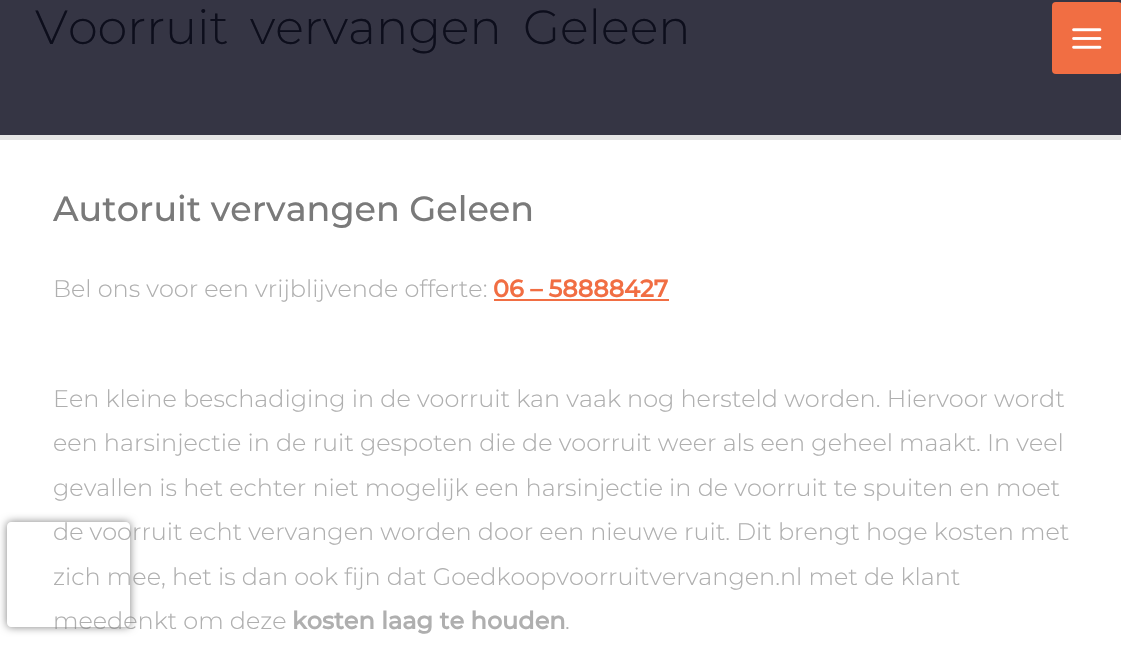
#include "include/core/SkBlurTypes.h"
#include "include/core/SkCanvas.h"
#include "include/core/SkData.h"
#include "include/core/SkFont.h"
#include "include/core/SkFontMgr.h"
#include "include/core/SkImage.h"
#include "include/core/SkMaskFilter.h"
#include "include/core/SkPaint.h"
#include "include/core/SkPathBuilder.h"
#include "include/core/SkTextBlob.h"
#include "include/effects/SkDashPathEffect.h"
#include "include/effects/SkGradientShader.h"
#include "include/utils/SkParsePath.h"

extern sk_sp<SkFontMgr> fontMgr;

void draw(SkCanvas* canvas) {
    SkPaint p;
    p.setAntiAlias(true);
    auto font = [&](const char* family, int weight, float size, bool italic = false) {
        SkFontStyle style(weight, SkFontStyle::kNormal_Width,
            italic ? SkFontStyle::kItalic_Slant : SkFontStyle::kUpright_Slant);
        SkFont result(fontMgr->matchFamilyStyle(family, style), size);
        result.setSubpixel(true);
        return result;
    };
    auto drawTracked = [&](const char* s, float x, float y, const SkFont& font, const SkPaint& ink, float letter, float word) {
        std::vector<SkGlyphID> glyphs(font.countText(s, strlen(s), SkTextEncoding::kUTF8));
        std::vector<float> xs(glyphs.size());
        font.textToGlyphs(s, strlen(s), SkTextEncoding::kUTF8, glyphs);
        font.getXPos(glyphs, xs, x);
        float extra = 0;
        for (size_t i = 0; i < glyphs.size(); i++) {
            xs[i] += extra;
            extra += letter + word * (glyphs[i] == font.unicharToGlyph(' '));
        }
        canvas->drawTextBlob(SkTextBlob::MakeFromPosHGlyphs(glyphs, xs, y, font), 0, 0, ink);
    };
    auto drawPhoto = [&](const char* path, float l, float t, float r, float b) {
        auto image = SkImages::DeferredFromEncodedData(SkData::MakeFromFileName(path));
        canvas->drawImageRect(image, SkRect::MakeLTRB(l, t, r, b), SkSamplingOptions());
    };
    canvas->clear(0xFFFFFFFF);
    p.setColor(0xFF353544);
    canvas->drawRect(SkRect::MakeLTRB(0, 0, 1121, 135), p);
    p.setColor(0xFFE5E5E5);
    canvas->drawRect(SkRect::MakeLTRB(0, 135, 1121, 140), p);
    p.setColor(0xFFF16E43);
    canvas->drawRoundRect(SkRect::MakeLTRB(1052, 2, 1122, 74), 4, 4, p);
    drawPhoto("media/1.png", 1072, 28, 1102, 49);
    auto font1 = font("Montserrat", 300, 47.9f);
    p.setColor(0xFF0D0E1C);
    drawTracked("Voorruit vervangen Geleen", 35, 44, font1, p, 0, 9);
    auto font2 = font("Montserrat", 500, 35);
    p.setColor(0xFF7A7A7A);
    canvas->drawString("Autoruit vervangen Geleen", 53, 221, font2, p);
    auto font3 = font("Montserrat", 300, 23.95f);
    p.setColor(0xFFAFAFAF);
    canvas->drawString("Bel ons voor een vrijblijvende offerte:", 53, 297, font3, p);
    auto font4 = font("Montserrat", 700, 23.95f);
    p.setColor(0xFFF16E43);
    canvas->drawString("06 – 58888427", 493, 297, font4, p);
    canvas->drawRect(SkRect::MakeLTRB(494, 299, 669, 301), p);
    p.setColor(0xFFAFAFAF);
    {
        const struct { const char* s; float x, y; } items[] = {
            {"Een kleine beschadiging in de voorruit kan vaak nog hersteld worden. Hiervoor wordt", 53, 407},
            {"een harsinjectie in de ruit gespoten die de voorruit weer als een geheel maakt. In veel", 53, 451},
            {"gevallen is het echter niet mogelijk een harsinjectie in de voorruit te spuiten en moet", 53, 496},
            {"de voorruit echt vervangen worden door een nieuwe ruit. Dit brengt hoge kosten met", 53, 540},
            {"zich mee, het is dan ook fijn dat Goedkoopvoorruitvervangen.nl met de klant", 53, 585},
            {"meedenkt om deze", 53, 629},
        };
        for (auto [s, x, y] : items) {
            canvas->drawString(s, x, y, font3, p);
        }
    }
    canvas->drawString("kosten laag te houden", 292, 629, font4, p);
    canvas->drawString(".", 565, 629, font3, p);
    canvas->save();
    canvas->clipPath(SkPathBuilder(SkPathFillType::kEvenOdd).moveTo(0, 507).lineTo(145, 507).lineTo(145, 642).lineTo(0, 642).close().moveTo(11, 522).lineTo(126, 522).cubicTo(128, 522, 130, 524, 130, 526).lineTo(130, 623).cubicTo(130, 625, 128, 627, 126, 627).lineTo(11, 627).cubicTo(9, 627, 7, 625, 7, 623).lineTo(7, 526).cubicTo(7, 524, 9, 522, 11, 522).close().detach(), true);
    p.setColor(0xFF808080);
    p.setMaskFilter(SkMaskFilter::MakeBlur(kNormal_SkBlurStyle, 4.5f));
    canvas->drawRoundRect(SkRect::MakeLTRB(7, 522, 130, 627), 4, 4, p);
    p.setMaskFilter(nullptr);
    canvas->restore();
}
